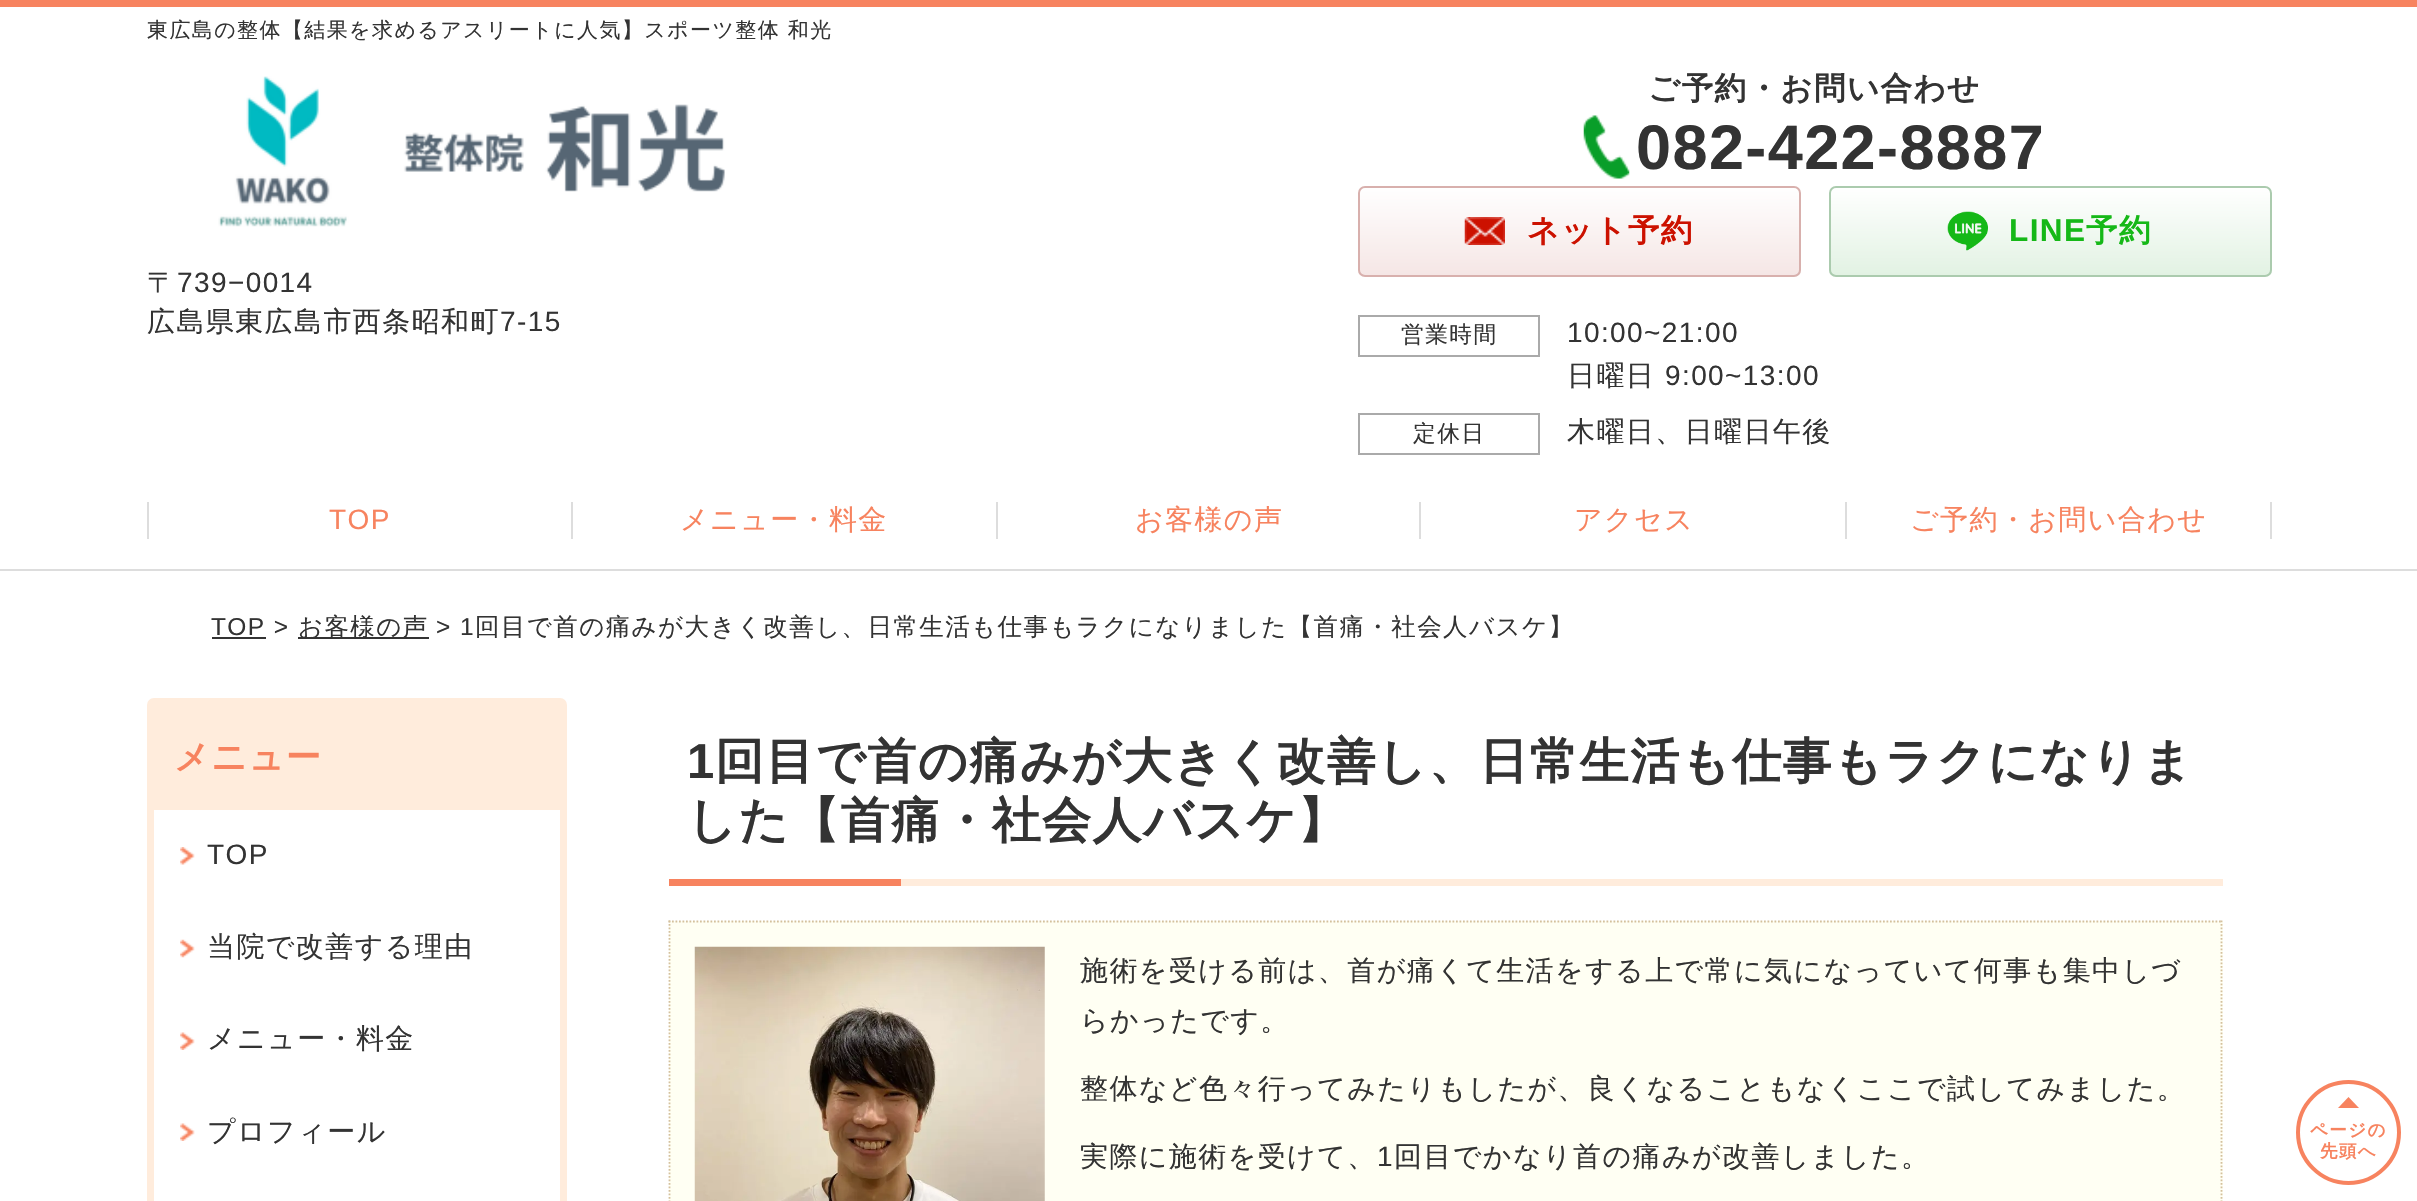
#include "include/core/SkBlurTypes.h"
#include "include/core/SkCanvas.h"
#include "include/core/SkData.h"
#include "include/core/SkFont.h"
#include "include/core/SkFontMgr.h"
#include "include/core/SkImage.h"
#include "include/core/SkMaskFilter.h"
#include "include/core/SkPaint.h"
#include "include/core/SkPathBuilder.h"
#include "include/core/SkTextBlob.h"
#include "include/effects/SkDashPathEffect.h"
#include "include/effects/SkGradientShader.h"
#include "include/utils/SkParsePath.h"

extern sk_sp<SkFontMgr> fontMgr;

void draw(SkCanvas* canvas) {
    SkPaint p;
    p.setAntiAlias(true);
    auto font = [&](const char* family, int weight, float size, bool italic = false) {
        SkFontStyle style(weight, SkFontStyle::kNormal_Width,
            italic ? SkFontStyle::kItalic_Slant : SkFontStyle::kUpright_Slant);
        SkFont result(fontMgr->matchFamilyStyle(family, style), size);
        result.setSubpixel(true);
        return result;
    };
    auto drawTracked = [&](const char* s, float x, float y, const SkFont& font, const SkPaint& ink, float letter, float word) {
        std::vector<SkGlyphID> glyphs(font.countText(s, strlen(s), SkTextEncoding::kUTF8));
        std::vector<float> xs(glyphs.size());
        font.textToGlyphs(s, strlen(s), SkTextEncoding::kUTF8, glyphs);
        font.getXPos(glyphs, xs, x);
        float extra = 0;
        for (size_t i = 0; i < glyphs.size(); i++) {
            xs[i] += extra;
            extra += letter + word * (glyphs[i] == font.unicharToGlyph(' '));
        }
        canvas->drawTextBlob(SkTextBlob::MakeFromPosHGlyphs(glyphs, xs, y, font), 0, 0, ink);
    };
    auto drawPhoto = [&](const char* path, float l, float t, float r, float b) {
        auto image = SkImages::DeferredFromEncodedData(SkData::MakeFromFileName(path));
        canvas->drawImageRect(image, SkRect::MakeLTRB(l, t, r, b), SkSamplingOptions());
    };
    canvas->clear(0xFFFFFFFF);
    p.setColor(0xFFF7835F);
    canvas->drawRect(SkRect::MakeLTRB(0, 0, 2417, 7), p);
    auto font1 = font("WenQuanYi Zen Hei", 500, 21);
    p.setColor(0xFF333333);
    drawTracked("東広島の整体【結果を求めるアスリートに人気】スポーツ整体 和光", 147, 37, font1, p, 1.4f, 0);
    drawPhoto("media/1.png", 218, 76, 725, 227);
    auto font2 = font("WenQuanYi Zen Hei", 500, 28);
    drawTracked("〒", 147, 292, font2, p, 1.4f, 0);
    auto font3 = font("Liberation Sans", 400, 28);
    drawTracked("739−0014", 177, 292, font3, p, 1.4f, 0);
    drawTracked("広島県東広島市西条昭和町", 147, 331, font2, p, 1.4f, 0);
    drawTracked("7-15", 500, 331, font3, p, 1.4f, 0);
    auto font4 = font("WenQuanYi Zen Hei", 700, 31.5f);
    drawTracked("ご予約・お問い合わせ", 1648, 99, font4, p, 1.4f, 0);
    drawPhoto("media/2.png", 1583, 115, 1630, 179);
    auto font5 = font("Liberation Sans", 700, 63);
    drawTracked("082-422-8887", 1636, 169, font5, p, 1.4f, 0);
    canvas->save();
    canvas->clipPath(SkPathBuilder().moveTo(1365, 186).lineTo(1794, 186).cubicTo(1798, 186, 1801, 189, 1801, 193).lineTo(1801, 270).cubicTo(1801, 274, 1798, 277, 1794, 277).lineTo(1365, 277).cubicTo(1361, 277, 1358, 274, 1358, 270).lineTo(1358, 193).cubicTo(1358, 189, 1361, 186, 1365, 186).close().detach(), true);
    {
        const SkColor colors[] = {0xFFFFFFFF, 0xFFF5E6E5};
        const float stops[] = {0, 1};
        const SkPoint ends[] = {{1579, 187}, {1579, 275}};
        p.setShader(SkGradientShader::MakeLinear(ends, colors, stops, 2, SkTileMode::kClamp));
        p.setAlpha(255);
    }
    canvas->drawRect(SkRect::MakeLTRB(1358, 187, 1801, 275), p);
    canvas->restore();
    p.setStyle(SkPaint::kStroke_Style);
    p.setStrokeWidth(2);
    p.setShader(nullptr);
    p.setColor(0xFFD8B0AD);
    canvas->drawRoundRect(SkRect::MakeLTRB(1359, 187, 1800, 276), 6, 6, p);
    drawPhoto("media/3.png", 1464, 217, 1505, 245);
    p.setStyle(SkPaint::kFill_Style);
    p.setColor(0xFFCC1100);
    drawTracked("ネット予約", 1527, 241, font4, p, 1.4f, 0);
    canvas->save();
    canvas->clipPath(SkPathBuilder().moveTo(1836, 186).lineTo(2265, 186).cubicTo(2269, 186, 2272, 189, 2272, 193).lineTo(2272, 270).cubicTo(2272, 274, 2269, 277, 2265, 277).lineTo(1836, 277).cubicTo(1832, 277, 1829, 274, 1829, 270).lineTo(1829, 193).cubicTo(1829, 189, 1832, 186, 1836, 186).close().detach(), true);
    {
        const SkColor colors[] = {0xFFFFFFFF, 0xFFE2F2E3};
        const float stops[] = {0, 1};
        const SkPoint ends[] = {{2050, 187}, {2050, 275}};
        p.setShader(SkGradientShader::MakeLinear(ends, colors, stops, 2, SkTileMode::kClamp));
        p.setAlpha(255);
    }
    canvas->drawRect(SkRect::MakeLTRB(1829, 187, 2272, 275), p);
    canvas->restore();
    p.setStyle(SkPaint::kStroke_Style);
    p.setShader(nullptr);
    p.setColor(0xFFABCBAE);
    canvas->drawRoundRect(SkRect::MakeLTRB(1830, 187, 2271, 276), 6, 6, p);
    drawPhoto("media/4.png", 1947, 211, 1988, 251);
    auto font6 = font("Liberation Sans", 700, 31.5f);
    p.setStyle(SkPaint::kFill_Style);
    p.setColor(0xFF15B817);
    drawTracked("LINE", 2009, 241, font6, p, 1.4f, 0);
    drawTracked("予約", 2086, 241, font4, p, 1.4f, 0);
    p.setStyle(SkPaint::kStroke_Style);
    p.setColor(0xFFAAAAAA);
    canvas->drawRect(SkRect::MakeLTRB(1359, 316, 1539, 356), p);
    auto font7 = font("WenQuanYi Zen Hei", 500, 22.75f);
    p.setStyle(SkPaint::kFill_Style);
    p.setColor(0xFF333333);
    drawTracked("営業時間", 1401, 342, font7, p, 1.4f, 0);
    drawTracked("10:00~21:00", 1567, 342, font3, p, 1.4f, 0);
    drawTracked("日曜日", 1567, 385, font2, p, 1.4f, 0);
    drawTracked("9:00~13:00", 1665, 385, font3, p, 1.4f, 0);
    p.setStyle(SkPaint::kStroke_Style);
    p.setColor(0xFFAAAAAA);
    canvas->drawRect(SkRect::MakeLTRB(1359, 414, 1539, 454), p);
    p.setStyle(SkPaint::kFill_Style);
    p.setColor(0xFF333333);
    drawTracked("定休日", 1413, 441, font7, p, 1.4f, 0);
    drawTracked("木曜日、日曜日午後", 1567, 441, font2, p, 1.4f, 0);
    p.setColor(0xFFDDDDDD);
    canvas->drawRect(SkRect::MakeLTRB(0, 569, 2417, 571), p);
    canvas->drawRect(SkRect::MakeLTRB(147, 502, 149, 539), p);
    p.setColor(0xFFF7835F);
    drawTracked("TOP", 329, 529, font3, p, 1.4f, 0);
    p.setColor(0xFFDDDDDD);
    canvas->drawRect(SkRect::MakeLTRB(571, 502, 573, 539), p);
    p.setColor(0xFFF7835F);
    drawTracked("メニュー・料金", 680, 529, font2, p, 1.4f, 0);
    p.setColor(0xFFDDDDDD);
    canvas->drawRect(SkRect::MakeLTRB(996, 502, 998, 539), p);
    p.setColor(0xFFF7835F);
    drawTracked("お客様の声", 1135, 529, font2, p, 1.4f, 0);
    p.setColor(0xFFDDDDDD);
    canvas->drawRect(SkRect::MakeLTRB(1419, 502, 1421, 539), p);
    p.setColor(0xFFF7835F);
    drawTracked("アクセス", 1574, 529, font2, p, 1.4f, 0);
    p.setColor(0xFFDDDDDD);
    canvas->drawRect(SkRect::MakeLTRB(1845, 502, 1847, 539), p);
    p.setColor(0xFFF7835F);
    drawTracked("ご予約・お問い合わせ", 1910, 529, font2, p, 1.4f, 0);
    p.setColor(0xFFDDDDDD);
    canvas->drawRect(SkRect::MakeLTRB(2270, 502, 2272, 539), p);
    auto font8 = font("Liberation Sans", 400, 24.5f);
    p.setColor(0xFF333333);
    drawTracked("TOP >", 211, 635, font8, p, 1.4f, 0);
    canvas->drawRect(SkRect::MakeLTRB(212, 637, 266, 639), p);
    canvas->drawRect(SkRect::MakeLTRB(298, 637, 429, 639), p);
    auto font9 = font("WenQuanYi Zen Hei", 500, 24.5f);
    drawTracked("お客様の声", 298, 635, font9, p, 1.4f, 0);
    drawTracked("> 1", 436, 635, font8, p, 1.4f, 0);
    drawTracked("回目で首の痛みが大きく改善し、日常生活も仕事もラクになりました【首痛・社会人バスケ】", 475, 635, font9, p, 1.4f, 0);
    p.setColor(0xFFFFECDC);
    canvas->drawRoundRect(SkRect::MakeLTRB(150.5f, 701.5f, 563.5f, 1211.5f), 3.5f, 3.5f, p);
    p.setStyle(SkPaint::kStroke_Style);
    p.setStrokeWidth(7);
    canvas->drawRoundRect(SkRect::MakeLTRB(150.5f, 701.5f, 563.5f, 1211.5f), 3.5f, 3.5f, p);
    auto font10 = font("WenQuanYi Zen Hei", 700, 35);
    p.setStyle(SkPaint::kFill_Style);
    p.setColor(0xFFF7835F);
    drawTracked("メニュー", 174, 769, font10, p, 1.4f, 0);
    p.setColor(0xFFFFFFFF);
    canvas->drawRect(SkRect::MakeLTRB(154, 810, 560, 1201), p);
    drawPhoto("media/5.png", 180, 847, 195, 865);
    p.setColor(0xFF333333);
    drawTracked("TOP", 207, 864, font3, p, 1.4f, 0);
    drawPhoto("media/6.png", 180, 939, 195, 958);
    drawTracked("当院で改善する理由", 207, 956, font2, p, 1.4f, 0);
    drawPhoto("media/7.png", 180, 1032, 195, 1050);
    drawTracked("メニュー・料金", 207, 1048, font2, p, 1.4f, 0);
    drawPhoto("media/7.png", 180, 1123, 195, 1141);
    drawTracked("プロフィール", 207, 1141, font2, p, 1.4f, 0);
    auto font11 = font("Liberation Sans", 700, 49);
    drawTracked("1", 687, 778, font11, p, 1.4f, 0);
    auto font12 = font("WenQuanYi Zen Hei", 700, 49);
    drawTracked("回目で首の痛みが大きく改善し、日常生活も仕事もラクになりま", 715, 778, font12, p, 1.4f, 0);
    drawTracked("した【首痛・社会人バスケ】", 687, 837, font12, p, 1.4f, 0);
    {
        const struct { float l, t, r, b; SkColor color; } items[] = {
            {669, 879, 901, 886, 0xFFF7835F},
            {901, 879, 2223, 886, 0xFFFFECDC},
            {669, 921, 2223, 1201, 0xFFFFFFF3},
        };
        for (auto [l, t, r, b, color] : items) {
            p.setColor(color);
            canvas->drawRect(SkRect::MakeLTRB(l, t, r, b), p);
        }
    }
    p.setStyle(SkPaint::kStroke_Style);
    p.setStrokeWidth(1.8f);
    p.setColor(0xFFD4C09D);
    p.setPathEffect(SkDashPathEffect::Make({{1.75f, 1.75f}}, 0));
    canvas->drawPath(SkPathBuilder().moveTo(668.5f, 921.5f).lineTo(2222.5f, 921.5f).detach(), p);
    p.setPathEffect(nullptr);
    p.setPathEffect(SkDashPathEffect::Make({{1.75f, 1.75f}}, 0));
    canvas->drawPath(SkPathBuilder().moveTo(2221.5f, 920.5f).lineTo(2221.5f, 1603).detach(), p);
    p.setPathEffect(nullptr);
    p.setPathEffect(SkDashPathEffect::Make({{1.75f, 1.75f}}, 0));
    canvas->drawPath(SkPathBuilder().moveTo(669.5f, 920.5f).lineTo(669.5f, 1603).detach(), p);
    p.setPathEffect(nullptr);
    drawPhoto("media/8.png", 694, 946, 1045, 1201);
    p.setStyle(SkPaint::kFill_Style);
    p.setColor(0xFF333333);
    {
        const struct { const char* s; float x, y; } items[] = {
            {"施術を受ける前は、首が痛くて生活をする上で常に気になっていて何事も集中しづ", 1080, 980},
            {"らかったです。", 1080, 1030},
            {"整体など色々行ってみたりもしたが、良くなることもなくここで試してみました。", 1080, 1098},
            {"実際に施術を受けて、", 1080, 1166},
        };
        for (auto [s, x, y] : items) {
            drawTracked(s, x, y, font2, p, 1.4f, 0);
        }
    }
    drawTracked("1", 1377, 1166, font3, p, 1.4f, 0);
    drawTracked("回目でかなり首の痛みが改善しました。", 1394, 1166, font2, p, 1.4f, 0);
    p.setStyle(SkPaint::kStroke_Style);
    p.setStrokeWidth(4);
    p.setColor(0xFFF7835F);
    canvas->drawCircle(2348.5f, 1132.5f, 50.5f, p);
    p.setStyle(SkPaint::kFill_Style);
    canvas->drawPath(SkPathBuilder().moveTo(2359, 1108).lineTo(2338, 1108).lineTo(2348.5f, 1097).close().detach(), p);
    auto font13 = font("WenQuanYi Zen Hei", 700, 17.5f);
    drawTracked("ページの", 2310, 1136, font13, p, 1.4f, 0);
    drawTracked("先頭へ", 2320, 1157, font13, p, 1.4f, 0);
}
